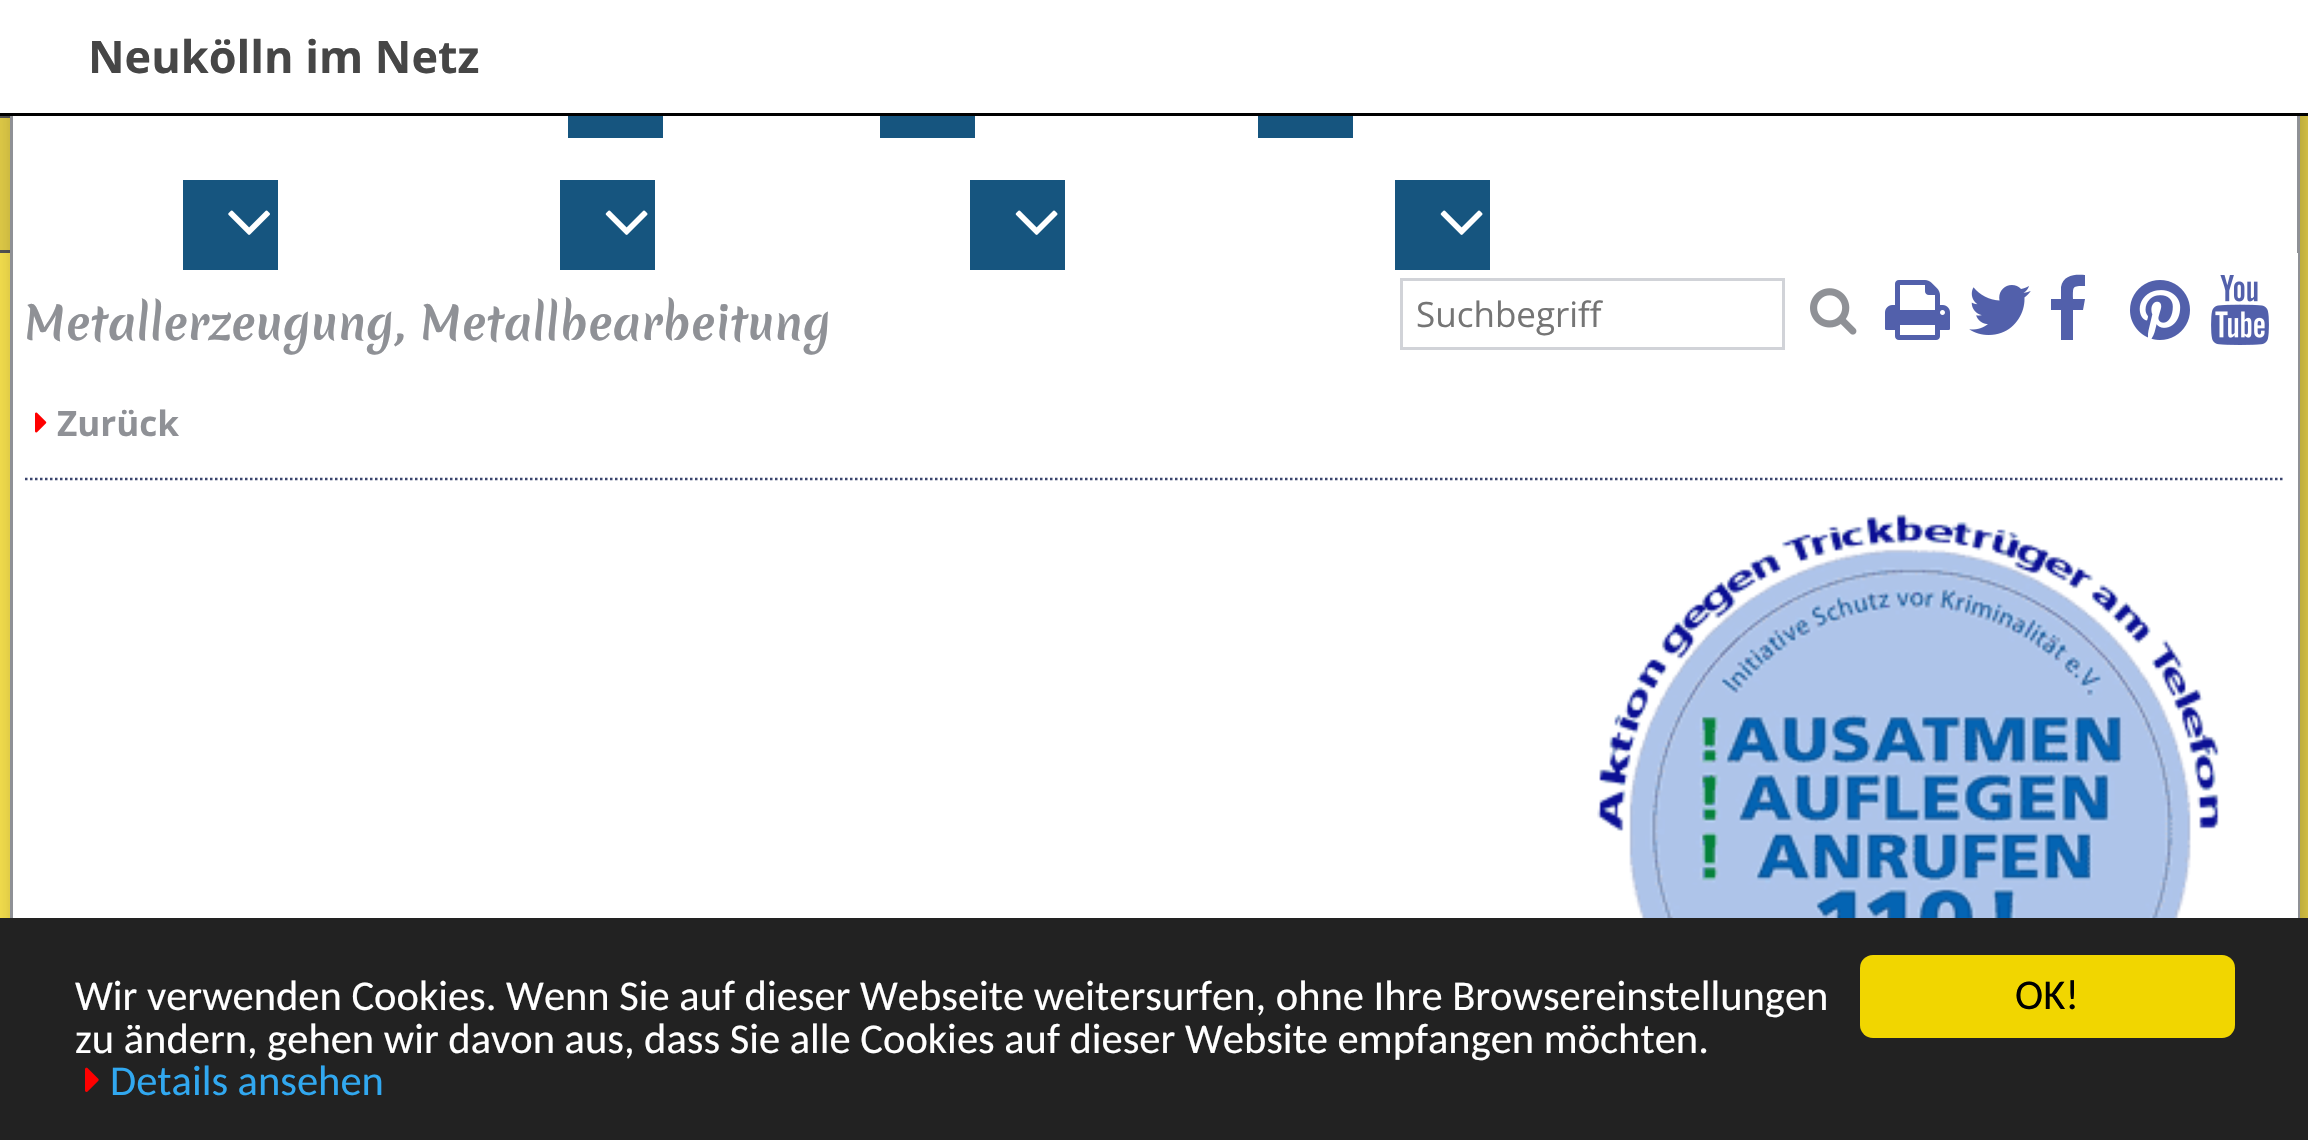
#include "include/core/SkBlurTypes.h"
#include "include/core/SkCanvas.h"
#include "include/core/SkData.h"
#include "include/core/SkFont.h"
#include "include/core/SkFontMgr.h"
#include "include/core/SkImage.h"
#include "include/core/SkMaskFilter.h"
#include "include/core/SkPaint.h"
#include "include/core/SkPathBuilder.h"
#include "include/core/SkTextBlob.h"
#include "include/effects/SkDashPathEffect.h"
#include "include/effects/SkGradientShader.h"
#include "include/utils/SkParsePath.h"

extern sk_sp<SkFontMgr> fontMgr;

void draw(SkCanvas* canvas) {
    SkPaint p;
    p.setAntiAlias(true);
    auto font = [&](const char* family, int weight, float size, bool italic = false) {
        SkFontStyle style(weight, SkFontStyle::kNormal_Width,
            italic ? SkFontStyle::kItalic_Slant : SkFontStyle::kUpright_Slant);
        SkFont result(fontMgr->matchFamilyStyle(family, style), size);
        result.setSubpixel(true);
        return result;
    };
    auto drawPhoto = [&](const char* path, float l, float t, float r, float b) {
        auto image = SkImages::DeferredFromEncodedData(SkData::MakeFromFileName(path));
        canvas->drawImageRect(image, SkRect::MakeLTRB(l, t, r, b), SkSamplingOptions());
    };
    canvas->clear(0xFFF5DF4D);
    {
        const struct { float l, t, r, b; SkColor color; } items[] = {
            {0, 116, 10, 118, 0xFF535353},
            {0, 118, 10, 250, 0xFFE0CB47},
            {0, 250, 10, 253, 0xFF535353},
        };
        for (auto [l, t, r, b, color] : items) {
            p.setColor(color);
            canvas->drawRect(SkRect::MakeLTRB(l, t, r, b), p);
        }
    }
    p.setColor(0x4D000000);
    p.setMaskFilter(SkMaskFilter::MakeBlur(kNormal_SkBlurStyle, 12.5f));
    canvas->drawRect(SkRect::MakeLTRB(18, -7, 2308, 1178), p);
    p.setMaskFilter(nullptr);
    p.setColor(0xFFFFFFFF);
    canvas->drawRect(SkRect::MakeLTRB(13, 116, 2297, 253), p);
    p.setStyle(SkPaint::kStroke_Style);
    p.setStrokeWidth(3);
    p.setColor(0xFF8F9196);
    canvas->drawRect(SkRect::MakeLTRB(11.5f, -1.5f, 2298.5f, 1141.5f), p);
    p.setStyle(SkPaint::kFill_Style);
    p.setColor(0xFFFFFFFF);
    canvas->drawRect(SkRect::MakeLTRB(0, 0, 2308, 113), p);
    p.setColor(0xFF000000);
    canvas->drawRect(SkRect::MakeLTRB(0, 113, 2308, 116), p);
    auto font1 = font("Open Sans", 700, 45);
    p.setColor(0xFF464646);
    canvas->drawString("Neukölln im Netz", 88, 73, font1, p);
    {
        const struct { float l, t, r, b; SkColor color; } items[] = {
            {568, 116, 663, 138, 0xFF16557F},
            {880, 116, 975, 138, 0xFF16557F},
            {1258, 116, 1353, 138, 0xFF16557F},
            {13, 253, 2298, 918, 0xFFFFFFFF},
            {183, 180, 278, 270, 0xFF16557F},
        };
        for (auto [l, t, r, b, color] : items) {
            p.setColor(color);
            canvas->drawRect(SkRect::MakeLTRB(l, t, r, b), p);
        }
    }
    drawPhoto("media/1.png", 228, 210, 270, 235);
    canvas->drawRect(SkRect::MakeLTRB(560, 180, 655, 270), p);
    drawPhoto("media/2.png", 605, 210, 648, 235);
    canvas->drawRect(SkRect::MakeLTRB(970, 180, 1065, 270), p);
    drawPhoto("media/2.png", 1015, 210, 1058, 235);
    canvas->drawRect(SkRect::MakeLTRB(1395, 180, 1490, 270), p);
    drawPhoto("media/2.png", 1440, 210, 1483, 235);
    auto font2 = font("Merienda", 700, 45);
    p.setColor(0xFF8F9196);
    canvas->drawString("Metallerzeugung, Metallbearbeitung", 24, 340, font2, p);
    drawPhoto("media/3.png", 35, 412, 47, 433);
    auto font3 = font("Open Sans", 700, 35);
    canvas->drawString("Zurück", 57, 436, font3, p);
    p.setStyle(SkPaint::kStroke_Style);
    p.setStrokeWidth(2.5f);
    p.setColor(0xFF3A446D);
    p.setPathEffect(SkDashPathEffect::Make({{2.5f, 2.5f}}, 0));
    canvas->drawPath(SkPathBuilder().moveTo(25, 479).lineTo(2285, 479).detach(), p);
    p.setPathEffect(nullptr);
    drawPhoto("media/4.png", 1597, 514, 2220, 918);
    p.setStrokeWidth(3);
    p.setColor(0xFFD1D3D8);
    canvas->drawRect(SkRect::MakeLTRB(1401.5f, 279.5f, 1783.5f, 348.5f), p);
    auto font4 = font("Open Sans", 400, 35);
    p.setStyle(SkPaint::kFill_Style);
    p.setColor(0xFF757575);
    canvas->drawString("Suchbegriff", 1416, 327, font4, p);
    drawPhoto("media/5.png", 1810, 288, 1857, 335);
    drawPhoto("media/6.png", 1885, 280, 1950, 340);
    drawPhoto("media/7.png", 1969, 285, 2031, 335);
    p.setColor(0xFF5260AB);
    canvas->drawPath(SkPathBuilder().moveTo(2085, 275).lineTo(2085, 286).cubicTo(2072, 286, 2073, 286, 2073, 299).lineTo(2085, 299).lineTo(2083, 310).lineTo(2073, 310).lineTo(2073, 340).lineTo(2061, 340).lineTo(2061, 310).lineTo(2051, 310).lineTo(2051, 299).lineTo(2061, 299).lineTo(2061, 287).cubicTo(2063, 275, 2075, 274, 2085, 275).close().detach(), p);
    drawPhoto("media/8.png", 2130, 280, 2190, 340);
    drawPhoto("media/9.png", 2211, 275, 2269, 345);
    p.setColor(0xFF222222);
    canvas->drawRect(SkRect::MakeLTRB(0, 918, 2308, 1140), p);
    auto font5 = font("Carlito", 400, 42.5f);
    p.setColor(0xFFFFFFFF);
    canvas->drawString("Wir verwenden Cookies. Wenn Sie auf dieser Webseite weitersurfen, ohne Ihre Browsereinstellungen", 75, 1010, font5, p);
    canvas->drawString("zu ändern, gehen wir davon aus, dass Sie alle Cookies auf dieser Website empfangen möchten.", 75, 1053, font5, p);
    drawPhoto("media/10.png", 85, 1067, 99, 1092);
    p.setColor(0xFF31A8F0);
    canvas->drawString("Details ansehen", 110, 1095, font5, p);
    p.setColor(0xFFF1D600);
    canvas->drawRoundRect(SkRect::MakeLTRB(1860, 955, 2235, 1038), 13, 13, p);
    p.setColor(0xFF000000);
    canvas->drawString("OK!", 2015, 1009, font5, p);
}
